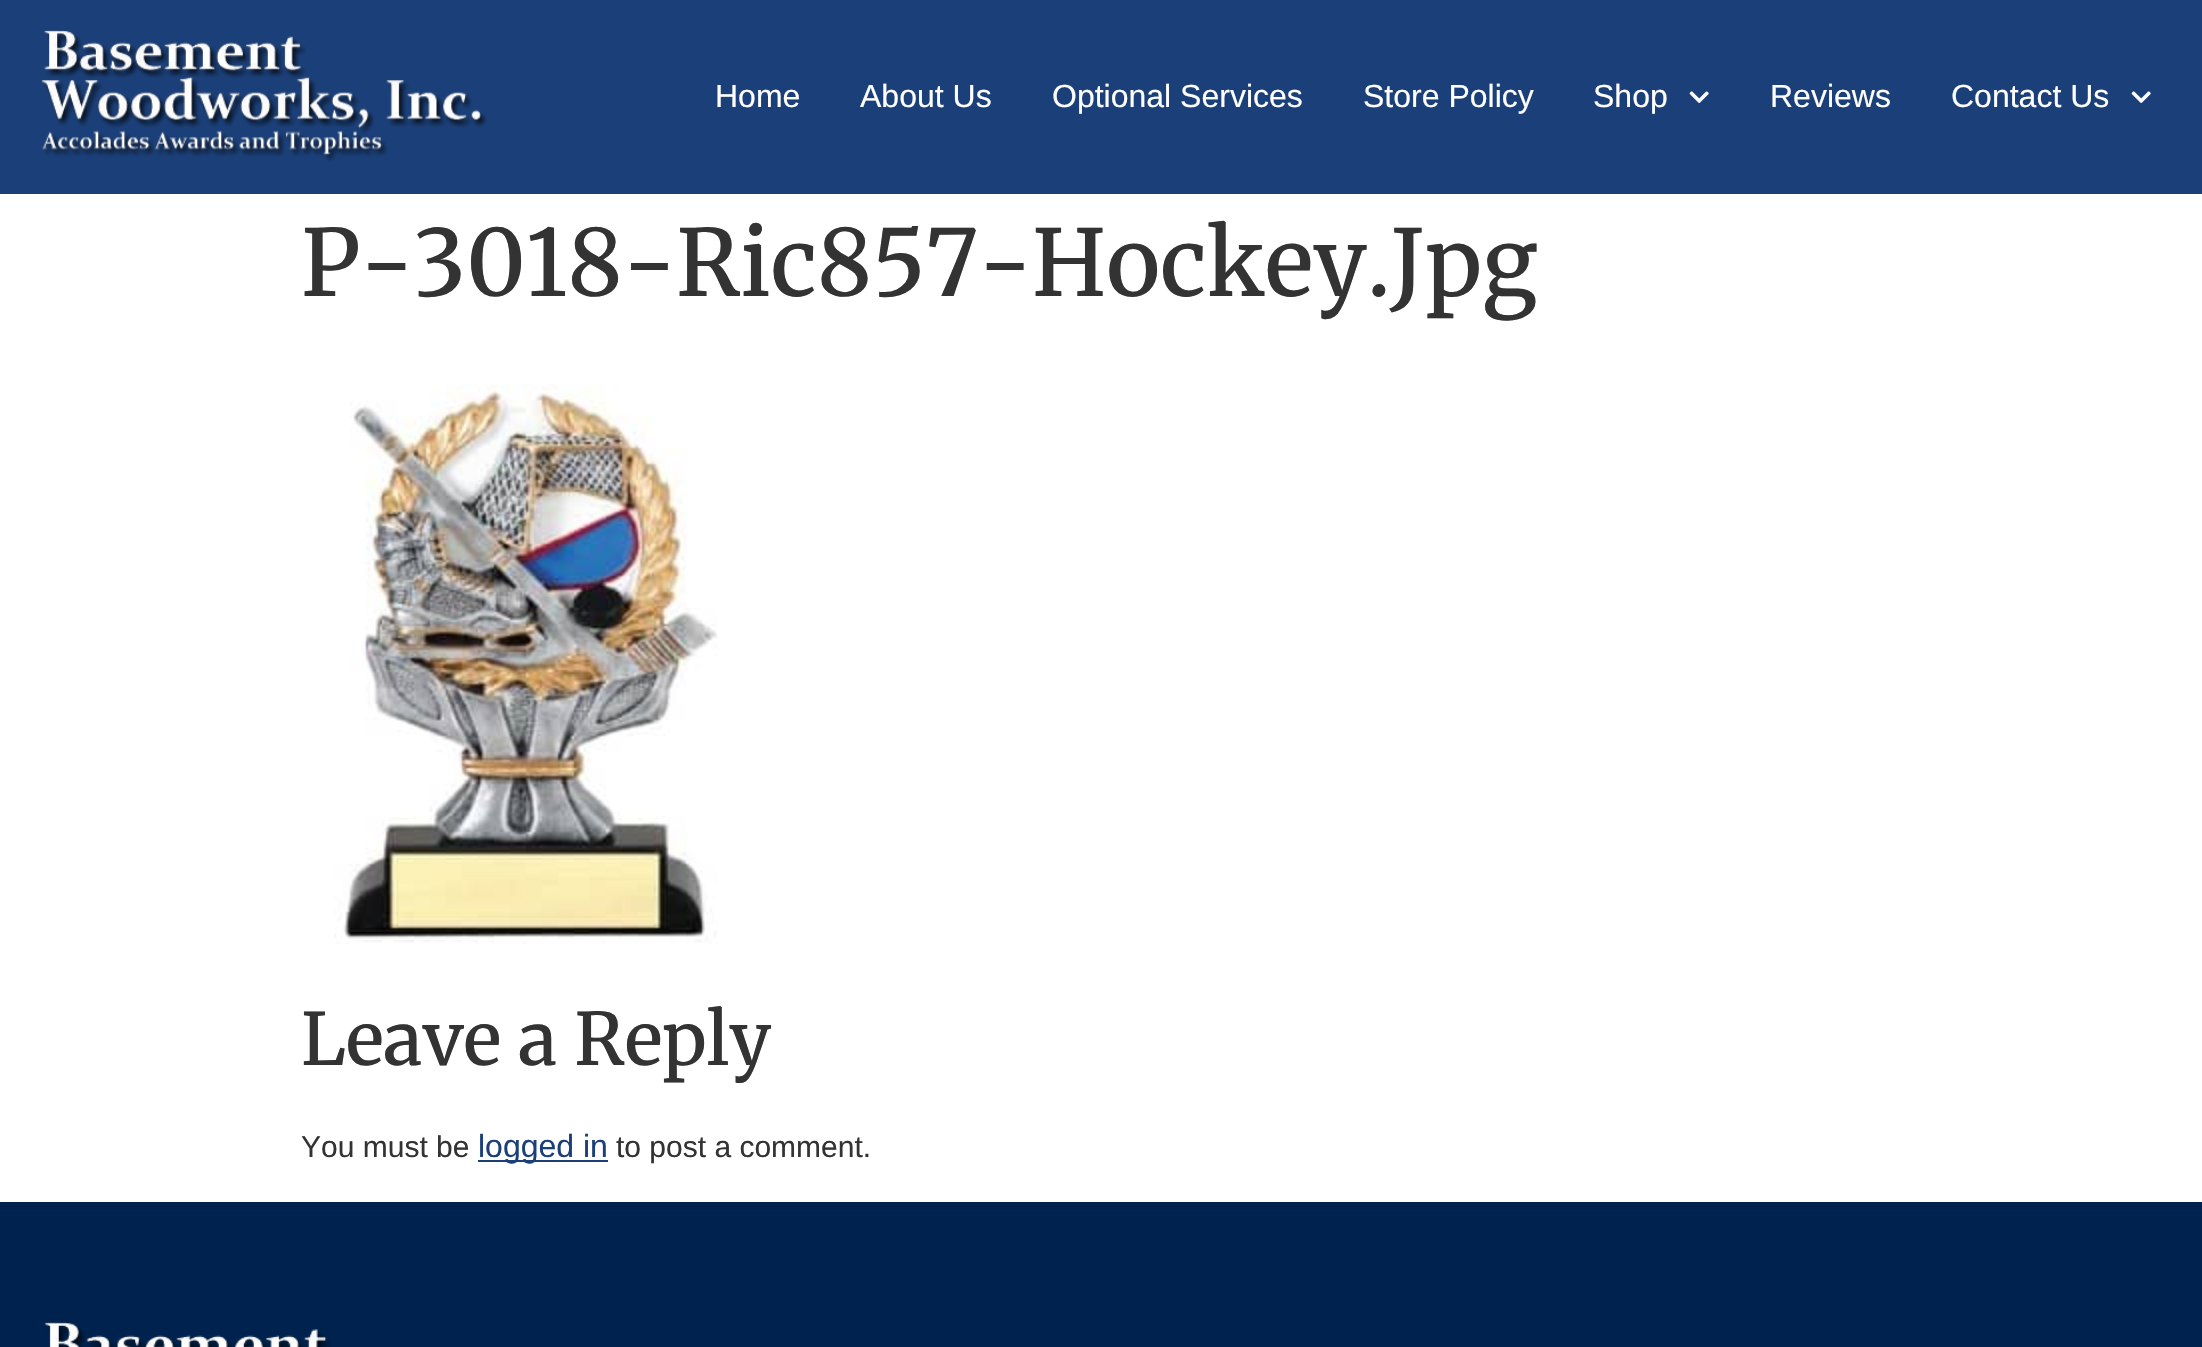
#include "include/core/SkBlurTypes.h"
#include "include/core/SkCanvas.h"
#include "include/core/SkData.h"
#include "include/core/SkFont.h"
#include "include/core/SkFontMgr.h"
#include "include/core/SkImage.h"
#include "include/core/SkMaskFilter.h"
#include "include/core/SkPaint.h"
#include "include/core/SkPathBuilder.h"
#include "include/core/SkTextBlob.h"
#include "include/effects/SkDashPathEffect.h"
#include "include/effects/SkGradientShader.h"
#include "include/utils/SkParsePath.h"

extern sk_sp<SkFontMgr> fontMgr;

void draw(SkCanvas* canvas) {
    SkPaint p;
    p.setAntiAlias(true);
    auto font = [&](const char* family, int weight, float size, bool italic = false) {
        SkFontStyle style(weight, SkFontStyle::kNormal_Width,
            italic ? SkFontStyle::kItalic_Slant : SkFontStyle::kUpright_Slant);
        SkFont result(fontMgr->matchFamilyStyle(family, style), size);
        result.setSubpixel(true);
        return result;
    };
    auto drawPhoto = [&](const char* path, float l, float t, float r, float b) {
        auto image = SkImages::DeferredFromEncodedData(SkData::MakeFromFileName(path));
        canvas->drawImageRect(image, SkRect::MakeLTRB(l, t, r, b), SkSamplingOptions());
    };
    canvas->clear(0xFFFFFFFF);
    p.setColor(0xFF1B4079);
    canvas->drawRect(SkRect::MakeLTRB(0, 0, 2202, 194), p);
    drawPhoto("media/1.png", 41, 30, 487, 162);
    auto font1 = font("Liberation Sans", 400, 32);
    p.setColor(0xFFFFFFFF);
    {
        const struct { const char* s; float x, y; } items[] = {
            {"Home", 715, 107},
            {"About Us", 860, 107},
            {"Optional Services", 1052, 107},
            {"Store Policy", 1363, 107},
            {"Shop", 1593, 107},
        };
        for (auto [s, x, y] : items) {
            canvas->drawString(s, x, y, font1, p);
        }
    }
    drawPhoto("media/2.png", 1689, 91, 1709, 103);
    canvas->drawString("Reviews", 1770, 107, font1, p);
    canvas->drawString("Contact Us", 1951, 107, font1, p);
    drawPhoto("media/2.png", 2131, 91, 2151, 103);
    auto font2 = font("Merriweather", 500, 92);
    p.setColor(0xFF333333);
    canvas->drawString("P-3018-Ric857-Hockey.Jpg", 301, 296, font2, p);
    drawPhoto("media/3.png", 334, 384, 718, 944);
    auto font3 = font("Merriweather", 500, 72);
    canvas->drawString("Leave a Reply", 301, 1065, font3, p);
    auto font4 = font("Liberation Sans", 400, 30);
    canvas->drawString("You must be", 301, 1157, font4, p);
    p.setColor(0xFF1B4079);
    canvas->drawRect(SkRect::MakeLTRB(478, 1160, 608, 1162), p);
    canvas->drawString("logged in", 478, 1157, font1, p);
    p.setColor(0xFF333333);
    canvas->drawString("to post a comment.", 616, 1157, font4, p);
    p.setColor(0xFF00224E);
    canvas->drawRect(SkRect::MakeLTRB(0, 1202, 2202, 1347), p);
    drawPhoto("media/4.png", 44, 1322, 332, 1347);
}
